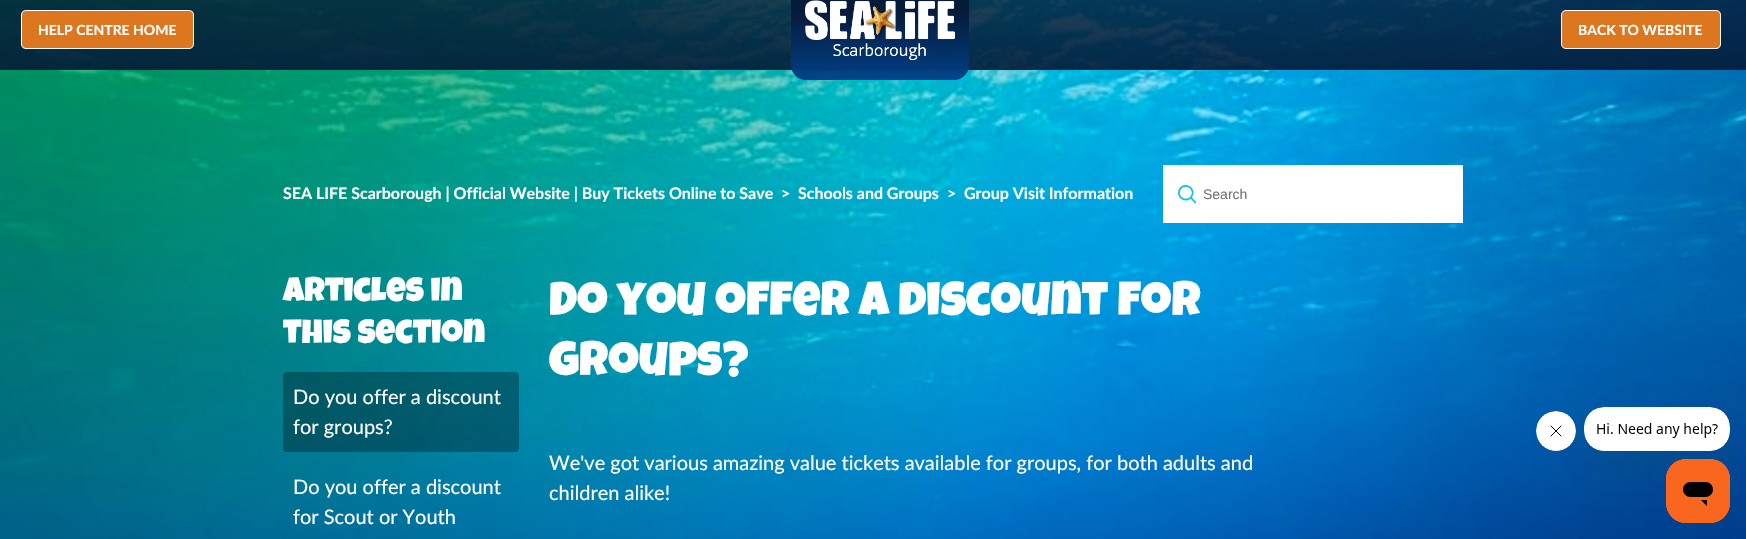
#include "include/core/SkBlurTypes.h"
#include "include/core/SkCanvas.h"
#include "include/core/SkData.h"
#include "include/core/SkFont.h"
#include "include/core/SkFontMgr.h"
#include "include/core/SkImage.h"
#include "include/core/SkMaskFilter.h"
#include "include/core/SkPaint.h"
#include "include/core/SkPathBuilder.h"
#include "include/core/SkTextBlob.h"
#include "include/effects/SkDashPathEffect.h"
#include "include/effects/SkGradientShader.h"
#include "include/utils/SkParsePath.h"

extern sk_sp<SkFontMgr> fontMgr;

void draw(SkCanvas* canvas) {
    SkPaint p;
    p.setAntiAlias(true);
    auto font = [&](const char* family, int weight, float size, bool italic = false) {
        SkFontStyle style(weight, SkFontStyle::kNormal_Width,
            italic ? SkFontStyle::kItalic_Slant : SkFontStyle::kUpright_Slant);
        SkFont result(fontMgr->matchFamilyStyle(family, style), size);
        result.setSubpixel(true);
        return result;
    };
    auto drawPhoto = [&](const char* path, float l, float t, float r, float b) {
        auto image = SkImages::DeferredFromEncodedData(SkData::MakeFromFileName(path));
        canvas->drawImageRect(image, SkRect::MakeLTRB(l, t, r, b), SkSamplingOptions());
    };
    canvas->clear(0xFFFFFFFF);
    drawPhoto("media/6.png", 0, 0, 1746, 539);
    drawPhoto("media/1.png", 181, 10, 194, 49);
    drawPhoto("media/2.png", 21, 10, 181, 49);
    auto font1 = font("Lato", 700, 14);
    p.setColor(0xFFFFFFFF);
    canvas->drawString("HELP CENTRE HOME", 38, 35, font1, p);
    drawPhoto("media/3.png", 805, 0, 955, 60);
    drawPhoto("media/4.png", 1708, 10, 1721, 49);
    drawPhoto("media/5.png", 1561, 10, 1708, 49);
    canvas->drawString("BACK TO WEBSITE", 1578, 35, font1, p);
    auto font2 = font("Lato", 700, 16);
    {
        const struct { const char* s; float x, y; } items[] = {
            {"SEA LIFE Scarborough | Official Website | Buy Tickets Online to Save", 283, 199},
            {">", 781, 199},
            {"Schools and Groups", 798, 199},
            {">", 947, 199},
            {"Group Visit Information", 964, 199},
        };
        for (auto [s, x, y] : items) {
            canvas->drawString(s, x, y, font2, p);
        }
    }
    canvas->drawRect(SkRect::MakeLTRB(1163, 165, 1463, 223), p);
    drawPhoto("media/7.png", 1178, 185, 1196, 203);
    auto font3 = font("Liberation Sans", 400, 14);
    p.setColor(0xFF757575);
    canvas->drawString("Search", 1203, 199, font3, p);
    auto font4 = font("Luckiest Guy", 400, 34);
    p.setColor(0xFFFFFFFF);
    canvas->drawString("Articles in", 283, 301, font4, p);
    canvas->drawString("this section", 283, 343, font4, p);
    p.setColor(0x4D000000);
    canvas->drawRoundRect(SkRect::MakeLTRB(283, 372, 519, 452), 4, 4, p);
    auto font5 = font("Lato", 400, 20);
    p.setColor(0xFFFFFFFF);
    {
        const struct { const char* s; float x, y; } items[] = {
            {"Do you offer a discount", 293, 404},
            {"for groups?", 293, 434},
            {"Do you offer a discount", 293, 494},
            {"for Scout or Youth", 293, 524},
        };
        for (auto [s, x, y] : items) {
            canvas->drawString(s, x, y, font5, p);
        }
    }
    auto font6 = font("Luckiest Guy", 400, 48);
    canvas->drawString("Do you offer a discount for", 549, 315, font6, p);
    canvas->drawString("groups?", 549, 375, font6, p);
    canvas->drawString("We've got various amazing value tickets available for groups, for both adults and", 549, 470, font5, p);
    canvas->drawString("children alike!", 549, 500, font5, p);
    drawPhoto("media/9.png", 1536, 411, 1576, 451);
    p.setColor(0x2617494D);
    p.setMaskFilter(SkMaskFilter::MakeBlur(kNormal_SkBlurStyle, 15));
    canvas->drawRoundRect(SkRect::MakeLTRB(1584, 427, 1730, 471), 20, 20, p);
    p.setMaskFilter(nullptr);
    drawPhoto("media/8.png", 1584, 407, 1730, 451);
    drawPhoto("media/10.png", 1666, 459, 1730, 523);
}
